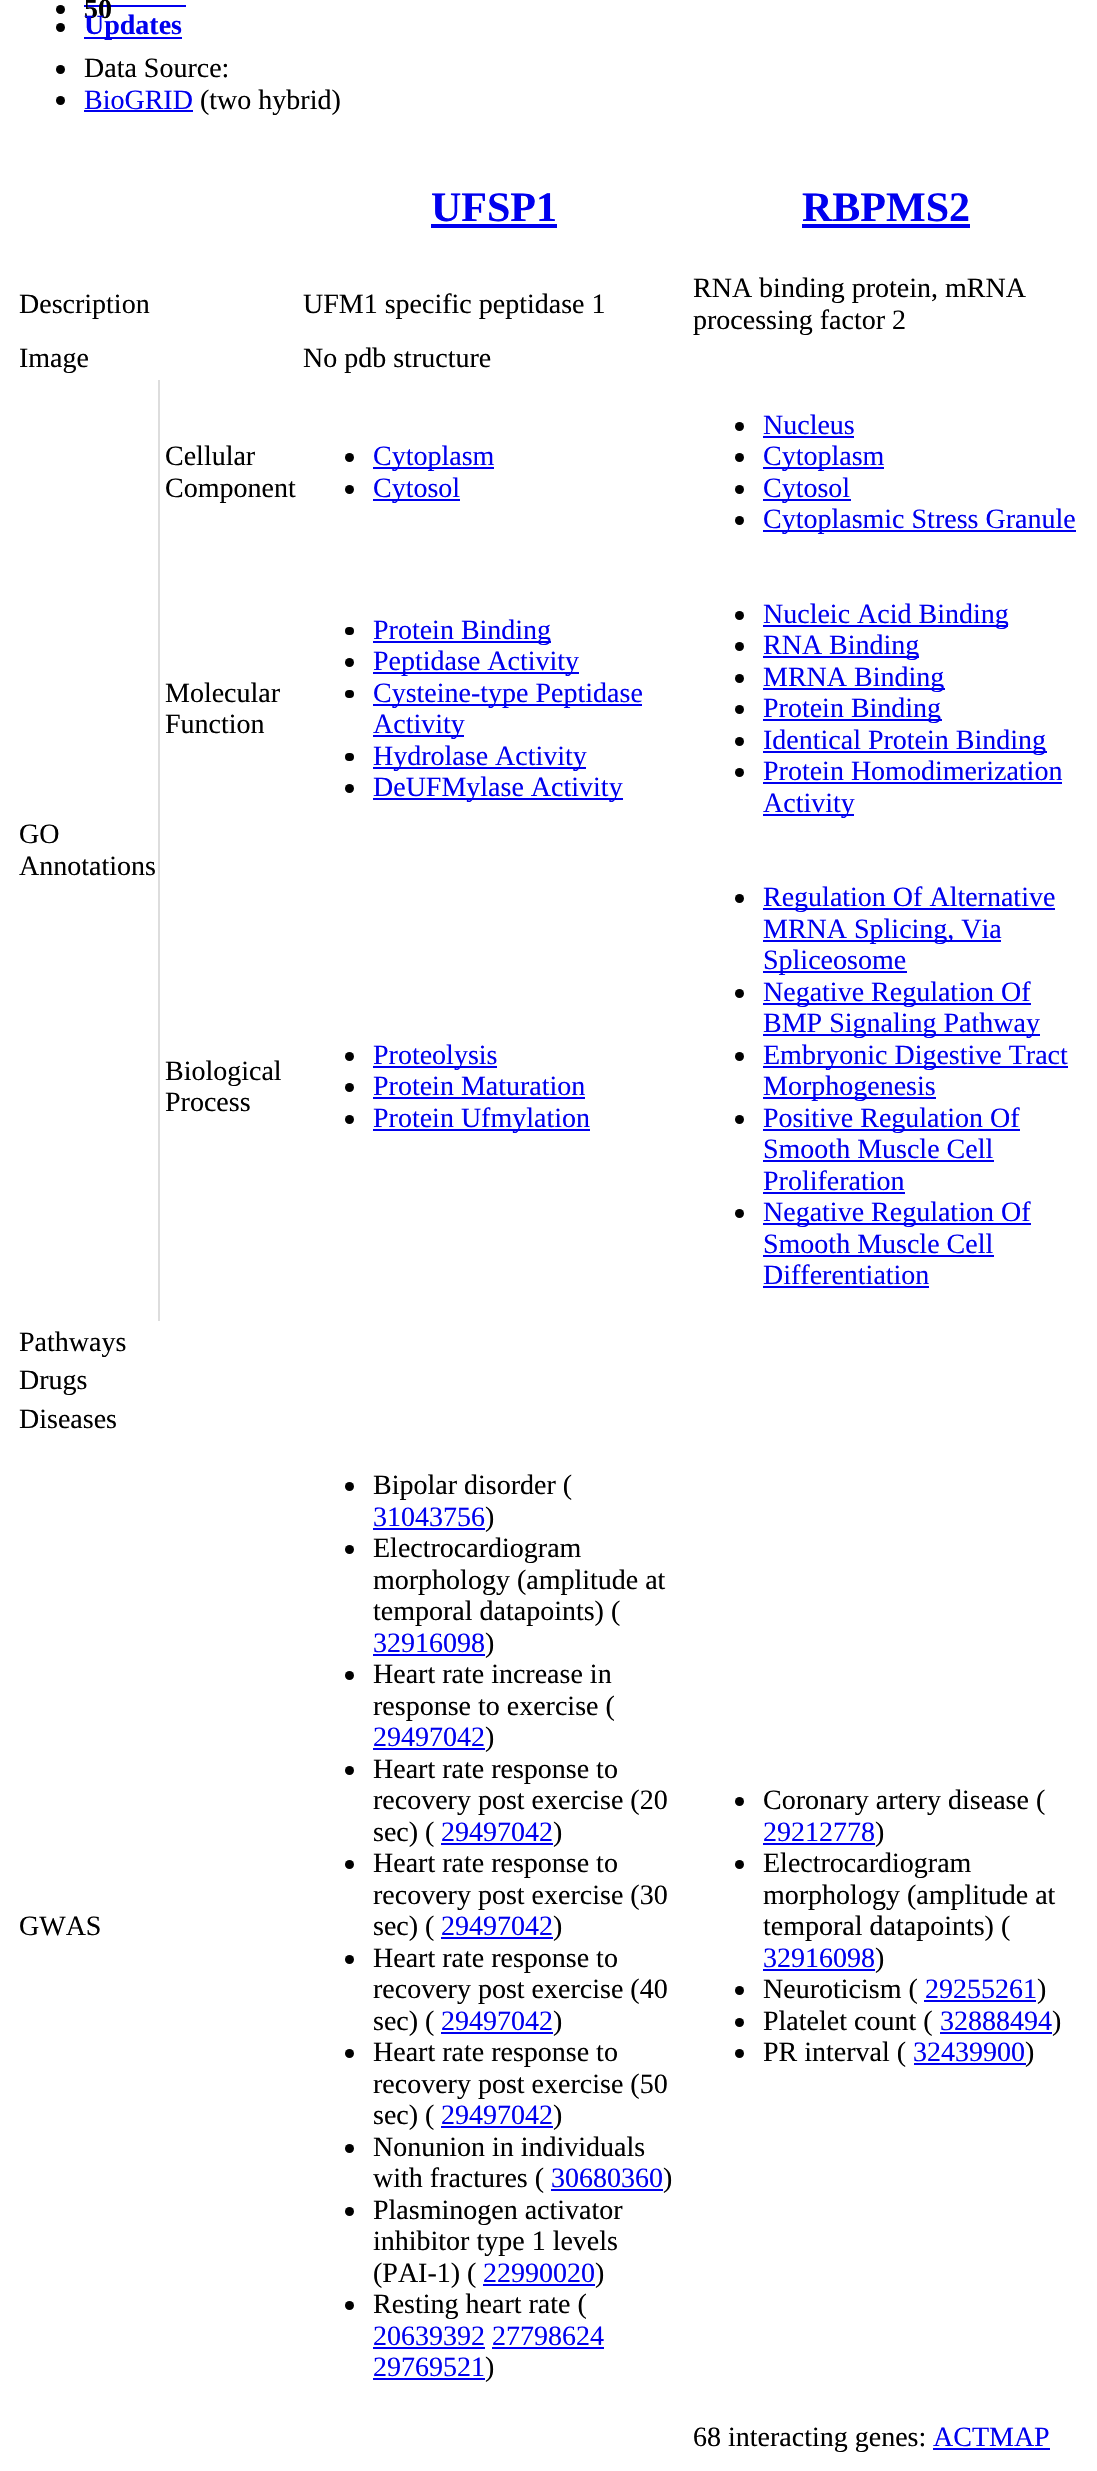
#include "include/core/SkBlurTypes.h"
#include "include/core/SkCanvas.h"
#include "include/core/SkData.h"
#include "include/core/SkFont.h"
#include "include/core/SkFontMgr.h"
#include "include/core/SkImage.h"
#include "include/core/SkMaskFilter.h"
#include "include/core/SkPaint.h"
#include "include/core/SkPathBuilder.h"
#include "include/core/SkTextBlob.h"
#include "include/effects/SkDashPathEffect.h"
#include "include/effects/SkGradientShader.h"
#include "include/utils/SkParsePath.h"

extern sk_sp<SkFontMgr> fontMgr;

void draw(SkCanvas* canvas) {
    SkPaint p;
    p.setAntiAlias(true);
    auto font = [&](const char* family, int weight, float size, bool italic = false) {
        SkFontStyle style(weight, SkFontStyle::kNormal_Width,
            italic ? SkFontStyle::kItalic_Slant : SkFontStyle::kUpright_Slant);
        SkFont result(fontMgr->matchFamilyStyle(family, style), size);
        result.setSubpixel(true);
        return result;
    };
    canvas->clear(0xFFFFFFFF);
    p.setColor(0xFF000000);
    canvas->drawCircle(60.5f, 9.5f, 4.5f, p);
    p.setColor(0xFF0000EE);
    canvas->drawRect(SkRect::MakeLTRB(84, 5, 186, 7), p);
    auto font1 = font("Liberation Serif", 700, 28);
    p.setColor(0xFF000000);
    canvas->drawString("50", 84, 18, font1, p);
    canvas->drawCircle(60.5f, 69.5f, 4.5f, p);
    auto font2 = font("Liberation Serif", 400, 28);
    canvas->drawString("Data Source:", 84, 77, font2, p);
    canvas->drawCircle(60.5f, 100.5f, 4.5f, p);
    p.setColor(0xFF0000EE);
    canvas->drawString("BioGRID", 84, 109, font2, p);
    canvas->drawRect(SkRect::MakeLTRB(84, 110, 193, 112), p);
    p.setColor(0xFF000000);
    canvas->drawString("(two hybrid)", 200, 109, font2, p);
    auto font3 = font("Liberation Serif", 700, 42);
    p.setColor(0xFF0000EE);
    canvas->drawString("UFSP1", 431, 221, font3, p);
    canvas->drawRect(SkRect::MakeLTRB(431, 224, 557, 228), p);
    canvas->drawString("RBPMS2", 802, 221, font3, p);
    canvas->drawRect(SkRect::MakeLTRB(802, 224, 970, 228), p);
    p.setColor(0xFF000000);
    {
        const struct { const char* s; float x, y; } items[] = {
            {"Description", 19, 313},
            {"UFM1 specific peptidase 1", 303, 313},
            {"RNA binding protein, mRNA", 693, 297},
            {"processing factor 2", 693, 329},
            {"Image", 19, 367},
            {"No pdb structure", 303, 367},
            {"Cellular", 165, 465},
            {"Component", 165, 497},
        };
        for (auto [s, x, y] : items) {
            canvas->drawString(s, x, y, font2, p);
        }
    }
    canvas->drawCircle(349.5f, 457.5f, 4.5f, p);
    p.setColor(0xFF0000EE);
    canvas->drawRect(SkRect::MakeLTRB(373, 467, 494, 469), p);
    canvas->drawString("Cytoplasm", 373, 465, font2, p);
    p.setColor(0xFF000000);
    canvas->drawCircle(349.5f, 489.5f, 4.5f, p);
    p.setColor(0xFF0000EE);
    canvas->drawRect(SkRect::MakeLTRB(373, 499, 460, 501), p);
    canvas->drawString("Cytosol", 373, 497, font2, p);
    p.setColor(0xFF000000);
    canvas->drawCircle(739.5f, 426.5f, 4.5f, p);
    p.setColor(0xFF0000EE);
    canvas->drawString("Nucleus", 763, 434, font2, p);
    canvas->drawRect(SkRect::MakeLTRB(763, 436, 854, 438), p);
    p.setColor(0xFF000000);
    canvas->drawCircle(739.5f, 457.5f, 4.5f, p);
    p.setColor(0xFF0000EE);
    canvas->drawRect(SkRect::MakeLTRB(763, 467, 884, 469), p);
    canvas->drawString("Cytoplasm", 763, 465, font2, p);
    p.setColor(0xFF000000);
    canvas->drawCircle(739.5f, 489.5f, 4.5f, p);
    p.setColor(0xFF0000EE);
    canvas->drawRect(SkRect::MakeLTRB(763, 499, 851, 501), p);
    canvas->drawString("Cytosol", 763, 497, font2, p);
    p.setColor(0xFF000000);
    canvas->drawCircle(739.5f, 520.5f, 4.5f, p);
    p.setColor(0xFF0000EE);
    canvas->drawRect(SkRect::MakeLTRB(763, 530, 1076, 532), p);
    canvas->drawString("Cytoplasmic Stress Granule", 763, 528, font2, p);
    p.setColor(0xFFDDDDDD);
    canvas->drawRect(SkRect::MakeLTRB(158, 380, 160, 1321), p);
    p.setColor(0xFF000000);
    {
        const struct { const char* s; float x, y; } items[] = {
            {"GO", 19, 843},
            {"Annotations", 19, 875},
            {"Molecular", 165, 702},
            {"Function", 165, 733},
        };
        for (auto [s, x, y] : items) {
            canvas->drawString(s, x, y, font2, p);
        }
    }
    canvas->drawRoundRect(SkRect::MakeLTRB(345, 627, 354, 635), 4, 4, p);
    p.setColor(0xFF0000EE);
    canvas->drawRect(SkRect::MakeLTRB(373, 641, 551, 643), p);
    canvas->drawString("Protein Binding", 373, 639, font2, p);
    p.setColor(0xFF000000);
    canvas->drawCircle(349.5f, 662.5f, 4.5f, p);
    p.setColor(0xFF0000EE);
    canvas->drawRect(SkRect::MakeLTRB(373, 672, 579, 674), p);
    canvas->drawString("Peptidase Activity", 373, 670, font2, p);
    p.setColor(0xFF000000);
    canvas->drawRoundRect(SkRect::MakeLTRB(345, 690, 354, 698), 4, 4, p);
    p.setColor(0xFF0000EE);
    canvas->drawRect(SkRect::MakeLTRB(373, 704, 642, 706), p);
    canvas->drawString("Cysteine-type Peptidase", 373, 702, font2, p);
    canvas->drawRect(SkRect::MakeLTRB(373, 735, 464, 737), p);
    canvas->drawString("Activity", 373, 733, font2, p);
    p.setColor(0xFF000000);
    canvas->drawRoundRect(SkRect::MakeLTRB(345, 753, 354, 761), 4, 4, p);
    p.setColor(0xFF0000EE);
    canvas->drawRect(SkRect::MakeLTRB(373, 767, 586, 769), p);
    canvas->drawString("Hydrolase Activity", 373, 765, font2, p);
    p.setColor(0xFF000000);
    canvas->drawCircle(349.5f, 788.5f, 4.5f, p);
    p.setColor(0xFF0000EE);
    canvas->drawRect(SkRect::MakeLTRB(373, 798, 623, 800), p);
    canvas->drawString("DeUFMylase Activity", 373, 796, font2, p);
    p.setColor(0xFF000000);
    canvas->drawCircle(739.5f, 615.5f, 4.5f, p);
    p.setColor(0xFF0000EE);
    canvas->drawRect(SkRect::MakeLTRB(763, 625, 1008, 627), p);
    canvas->drawString("Nucleic Acid Binding", 763, 623, font2, p);
    p.setColor(0xFF000000);
    canvas->drawCircle(739.5f, 646.5f, 4.5f, p);
    p.setColor(0xFF0000EE);
    canvas->drawRect(SkRect::MakeLTRB(763, 656, 919, 658), p);
    canvas->drawString("RNA Binding", 763, 654, font2, p);
    p.setColor(0xFF000000);
    canvas->drawCircle(739.5f, 678.5f, 4.5f, p);
    p.setColor(0xFF0000EE);
    canvas->drawRect(SkRect::MakeLTRB(763, 688, 945, 690), p);
    canvas->drawString("MRNA Binding", 763, 686, font2, p);
    p.setColor(0xFF000000);
    canvas->drawCircle(739.5f, 709.5f, 4.5f, p);
    p.setColor(0xFF0000EE);
    canvas->drawRect(SkRect::MakeLTRB(763, 719, 942, 721), p);
    canvas->drawString("Protein Binding", 763, 717, font2, p);
    p.setColor(0xFF000000);
    canvas->drawCircle(739.5f, 741.5f, 4.5f, p);
    p.setColor(0xFF0000EE);
    canvas->drawRect(SkRect::MakeLTRB(763, 751, 1047, 753), p);
    canvas->drawString("Identical Protein Binding", 763, 749, font2, p);
    p.setColor(0xFF000000);
    canvas->drawCircle(739.5f, 772.5f, 4.5f, p);
    p.setColor(0xFF0000EE);
    canvas->drawString("Protein Homodimerization", 763, 780, font2, p);
    canvas->drawRect(SkRect::MakeLTRB(763, 782, 1062, 784), p);
    canvas->drawRect(SkRect::MakeLTRB(763, 814, 854, 816), p);
    canvas->drawString("Activity", 763, 812, font2, p);
    p.setColor(0xFF000000);
    canvas->drawString("Biological", 165, 1080, font2, p);
    canvas->drawString("Process", 165, 1111, font2, p);
    canvas->drawCircle(349.5f, 1056.5f, 4.5f, p);
    p.setColor(0xFF0000EE);
    canvas->drawRect(SkRect::MakeLTRB(373, 1066, 497, 1068), p);
    canvas->drawString("Proteolysis", 373, 1064, font2, p);
    p.setColor(0xFF000000);
    canvas->drawCircle(349.5f, 1087.5f, 4.5f, p);
    p.setColor(0xFF0000EE);
    canvas->drawString("Protein Maturation", 373, 1095, font2, p);
    canvas->drawRect(SkRect::MakeLTRB(373, 1097, 585, 1099), p);
    p.setColor(0xFF000000);
    canvas->drawCircle(349.5f, 1119.5f, 4.5f, p);
    p.setColor(0xFF0000EE);
    canvas->drawRect(SkRect::MakeLTRB(373, 1129, 590, 1131), p);
    canvas->drawString("Protein Ufmylation", 373, 1127, font2, p);
    p.setColor(0xFF000000);
    canvas->drawCircle(739.5f, 898.5f, 4.5f, p);
    p.setColor(0xFF0000EE);
    canvas->drawRect(SkRect::MakeLTRB(763, 908, 1055, 910), p);
    canvas->drawString("Regulation Of Alternative", 763, 906, font2, p);
    canvas->drawRect(SkRect::MakeLTRB(763, 940, 1001, 942), p);
    canvas->drawString("MRNA Splicing, Via", 763, 938, font2, p);
    canvas->drawRect(SkRect::MakeLTRB(763, 971, 907, 973), p);
    canvas->drawString("Spliceosome", 763, 969, font2, p);
    p.setColor(0xFF000000);
    canvas->drawCircle(739.5f, 993.5f, 4.5f, p);
    p.setColor(0xFF0000EE);
    canvas->drawRect(SkRect::MakeLTRB(763, 1003, 1031, 1005), p);
    canvas->drawString("Negative Regulation Of", 763, 1001, font2, p);
    canvas->drawRect(SkRect::MakeLTRB(763, 1034, 1040, 1036), p);
    canvas->drawString("BMP Signaling Pathway", 763, 1032, font2, p);
    p.setColor(0xFF000000);
    canvas->drawCircle(739.5f, 1056.5f, 4.5f, p);
    p.setColor(0xFF0000EE);
    canvas->drawRect(SkRect::MakeLTRB(763, 1066, 1068, 1068), p);
    canvas->drawString("Embryonic Digestive Tract", 763, 1064, font2, p);
    canvas->drawRect(SkRect::MakeLTRB(763, 1097, 936, 1099), p);
    canvas->drawString("Morphogenesis", 763, 1095, font2, p);
    p.setColor(0xFF000000);
    canvas->drawCircle(739.5f, 1119.5f, 4.5f, p);
    p.setColor(0xFF0000EE);
    canvas->drawRect(SkRect::MakeLTRB(763, 1129, 1020, 1131), p);
    canvas->drawString("Positive Regulation Of", 763, 1127, font2, p);
    canvas->drawString("Smooth Muscle Cell", 763, 1158, font2, p);
    canvas->drawRect(SkRect::MakeLTRB(763, 1160, 994, 1162), p);
    canvas->drawString("Proliferation", 763, 1190, font2, p);
    canvas->drawRect(SkRect::MakeLTRB(763, 1192, 905, 1194), p);
    p.setColor(0xFF000000);
    canvas->drawCircle(739.5f, 1213.5f, 4.5f, p);
    p.setColor(0xFF0000EE);
    canvas->drawRect(SkRect::MakeLTRB(763, 1223, 1031, 1225), p);
    canvas->drawString("Negative Regulation Of", 763, 1221, font2, p);
    canvas->drawString("Smooth Muscle Cell", 763, 1253, font2, p);
    canvas->drawRect(SkRect::MakeLTRB(763, 1255, 994, 1257), p);
    canvas->drawString("Differentiation", 763, 1284, font2, p);
    canvas->drawRect(SkRect::MakeLTRB(763, 1286, 929, 1288), p);
    p.setColor(0xFF000000);
    {
        const struct { const char* s; float x, y; } items[] = {
            {"Pathways", 19, 1351},
            {"Drugs", 19, 1389},
            {"Diseases", 19, 1428},
            {"GWAS", 19, 1935},
        };
        for (auto [s, x, y] : items) {
            canvas->drawString(s, x, y, font2, p);
        }
    }
    canvas->drawCircle(349.5f, 1486.5f, 4.5f, p);
    canvas->drawString("Bipolar disorder (", 373, 1494, font2, p);
    p.setColor(0xFF0000EE);
    canvas->drawString("31043756", 373, 1526, font2, p);
    canvas->drawRect(SkRect::MakeLTRB(373, 1528, 485, 1530), p);
    p.setColor(0xFF000000);
    canvas->drawString(")", 485, 1526, font2, p);
    canvas->drawCircle(349.5f, 1549.5f, 4.5f, p);
    {
        const struct { const char* s; float x, y; } items[] = {
            {"Electrocardiogram", 373, 1557},
            {"morphology (amplitude at", 373, 1589},
            {"temporal datapoints) (", 373, 1620},
        };
        for (auto [s, x, y] : items) {
            canvas->drawString(s, x, y, font2, p);
        }
    }
    p.setColor(0xFF0000EE);
    canvas->drawString("32916098", 373, 1652, font2, p);
    canvas->drawRect(SkRect::MakeLTRB(373, 1654, 485, 1656), p);
    p.setColor(0xFF000000);
    canvas->drawString(")", 485, 1652, font2, p);
    canvas->drawCircle(349.5f, 1675.5f, 4.5f, p);
    canvas->drawString("Heart rate increase in", 373, 1683, font2, p);
    canvas->drawString("response to exercise (", 373, 1715, font2, p);
    p.setColor(0xFF0000EE);
    canvas->drawString("29497042", 373, 1746, font2, p);
    canvas->drawRect(SkRect::MakeLTRB(373, 1748, 485, 1750), p);
    p.setColor(0xFF000000);
    canvas->drawString(")", 485, 1746, font2, p);
    canvas->drawCircle(349.5f, 1770.5f, 4.5f, p);
    {
        const struct { const char* s; float x, y; } items[] = {
            {"Heart rate response to", 373, 1778},
            {"recovery post exercise (20", 373, 1809},
            {"sec) (", 373, 1841},
        };
        for (auto [s, x, y] : items) {
            canvas->drawString(s, x, y, font2, p);
        }
    }
    p.setColor(0xFF0000EE);
    canvas->drawString("29497042", 441, 1841, font2, p);
    canvas->drawRect(SkRect::MakeLTRB(441, 1843, 553, 1845), p);
    p.setColor(0xFF000000);
    canvas->drawString(")", 553, 1841, font2, p);
    canvas->drawCircle(349.5f, 1864.5f, 4.5f, p);
    {
        const struct { const char* s; float x, y; } items[] = {
            {"Heart rate response to", 373, 1872},
            {"recovery post exercise (30", 373, 1904},
            {"sec) (", 373, 1935},
        };
        for (auto [s, x, y] : items) {
            canvas->drawString(s, x, y, font2, p);
        }
    }
    p.setColor(0xFF0000EE);
    canvas->drawString("29497042", 441, 1935, font2, p);
    canvas->drawRect(SkRect::MakeLTRB(441, 1937, 553, 1939), p);
    p.setColor(0xFF000000);
    canvas->drawString(")", 553, 1935, font2, p);
    canvas->drawCircle(349.5f, 1959.5f, 4.5f, p);
    {
        const struct { const char* s; float x, y; } items[] = {
            {"Heart rate response to", 373, 1967},
            {"recovery post exercise (40", 373, 1998},
            {"sec) (", 373, 2030},
        };
        for (auto [s, x, y] : items) {
            canvas->drawString(s, x, y, font2, p);
        }
    }
    p.setColor(0xFF0000EE);
    canvas->drawString("29497042", 441, 2030, font2, p);
    canvas->drawRect(SkRect::MakeLTRB(441, 2032, 553, 2034), p);
    p.setColor(0xFF000000);
    canvas->drawString(")", 553, 2030, font2, p);
    canvas->drawCircle(349.5f, 2053.5f, 4.5f, p);
    {
        const struct { const char* s; float x, y; } items[] = {
            {"Heart rate response to", 373, 2061},
            {"recovery post exercise (50", 373, 2093},
            {"sec) (", 373, 2124},
        };
        for (auto [s, x, y] : items) {
            canvas->drawString(s, x, y, font2, p);
        }
    }
    p.setColor(0xFF0000EE);
    canvas->drawString("29497042", 441, 2124, font2, p);
    canvas->drawRect(SkRect::MakeLTRB(441, 2126, 553, 2128), p);
    p.setColor(0xFF000000);
    canvas->drawString(")", 553, 2124, font2, p);
    canvas->drawCircle(349.5f, 2148.5f, 4.5f, p);
    canvas->drawString("Nonunion in individuals", 373, 2156, font2, p);
    canvas->drawString("with fractures (", 373, 2187, font2, p);
    p.setColor(0xFF0000EE);
    canvas->drawString("30680360", 551, 2187, font2, p);
    canvas->drawRect(SkRect::MakeLTRB(551, 2189, 663, 2191), p);
    p.setColor(0xFF000000);
    canvas->drawString(")", 663, 2187, font2, p);
    canvas->drawCircle(349.5f, 2211.5f, 4.5f, p);
    {
        const struct { const char* s; float x, y; } items[] = {
            {"Plasminogen activator", 373, 2219},
            {"inhibitor type 1 levels", 373, 2250},
            {"(PAI-1) (", 373, 2282},
        };
        for (auto [s, x, y] : items) {
            canvas->drawString(s, x, y, font2, p);
        }
    }
    p.setColor(0xFF0000EE);
    canvas->drawString("22990020", 483, 2282, font2, p);
    canvas->drawRect(SkRect::MakeLTRB(483, 2284, 595, 2286), p);
    p.setColor(0xFF000000);
    canvas->drawString(")", 595, 2282, font2, p);
    canvas->drawCircle(349.5f, 2305.5f, 4.5f, p);
    canvas->drawString("Resting heart rate (", 373, 2313, font2, p);
    p.setColor(0xFF0000EE);
    canvas->drawString("20639392 27798624", 373, 2345, font2, p);
    canvas->drawRect(SkRect::MakeLTRB(373, 2347, 485, 2349), p);
    canvas->drawRect(SkRect::MakeLTRB(492, 2347, 604, 2349), p);
    canvas->drawString("29769521", 373, 2376, font2, p);
    canvas->drawRect(SkRect::MakeLTRB(373, 2378, 485, 2380), p);
    p.setColor(0xFF000000);
    canvas->drawString(")", 485, 2376, font2, p);
    canvas->drawCircle(739.5f, 1801.5f, 4.5f, p);
    canvas->drawString("Coronary artery disease (", 763, 1809, font2, p);
    p.setColor(0xFF0000EE);
    canvas->drawString("29212778", 763, 1841, font2, p);
    canvas->drawRect(SkRect::MakeLTRB(763, 1843, 875, 1845), p);
    p.setColor(0xFF000000);
    canvas->drawString(")", 875, 1841, font2, p);
    canvas->drawCircle(739.5f, 1864.5f, 4.5f, p);
    {
        const struct { const char* s; float x, y; } items[] = {
            {"Electrocardiogram", 763, 1872},
            {"morphology (amplitude at", 763, 1904},
            {"temporal datapoints) (", 763, 1935},
        };
        for (auto [s, x, y] : items) {
            canvas->drawString(s, x, y, font2, p);
        }
    }
    p.setColor(0xFF0000EE);
    canvas->drawString("32916098", 763, 1967, font2, p);
    canvas->drawRect(SkRect::MakeLTRB(763, 1969, 875, 1971), p);
    p.setColor(0xFF000000);
    canvas->drawString(")", 875, 1967, font2, p);
    canvas->drawCircle(739.5f, 1990.5f, 4.5f, p);
    canvas->drawString("Neuroticism (", 763, 1998, font2, p);
    p.setColor(0xFF0000EE);
    canvas->drawString("29255261", 925, 1998, font2, p);
    canvas->drawRect(SkRect::MakeLTRB(924, 2000, 1036, 2002), p);
    p.setColor(0xFF000000);
    canvas->drawString(")", 1037, 1998, font2, p);
    canvas->drawCircle(739.5f, 2022.5f, 4.5f, p);
    canvas->drawString("Platelet count (", 763, 2030, font2, p);
    p.setColor(0xFF0000EE);
    canvas->drawString("32888494", 940, 2030, font2, p);
    canvas->drawRect(SkRect::MakeLTRB(940, 2032, 1052, 2034), p);
    p.setColor(0xFF000000);
    canvas->drawString(")", 1052, 2030, font2, p);
    canvas->drawCircle(739.5f, 2053.5f, 4.5f, p);
    canvas->drawString("PR interval (", 763, 2061, font2, p);
    p.setColor(0xFF0000EE);
    canvas->drawString("32439900", 913, 2061, font2, p);
    canvas->drawRect(SkRect::MakeLTRB(914, 2063, 1026, 2065), p);
    p.setColor(0xFF000000);
    canvas->drawString(")", 1025, 2061, font2, p);
    canvas->drawString("68 interacting genes:", 693, 2446, font2, p);
    p.setColor(0xFF0000EE);
    canvas->drawString("ACTMAP", 933, 2446, font2, p);
    canvas->drawRect(SkRect::MakeLTRB(933, 2448, 1050, 2450), p);
    p.setColor(0xFF000000);
    canvas->drawCircle(60.5f, 27.5f, 4.5f, p);
    p.setColor(0xFF0000EE);
    canvas->drawRect(SkRect::MakeLTRB(84, 37, 182, 39), p);
    canvas->drawString("Updates", 84, 34, font1, p);
}
